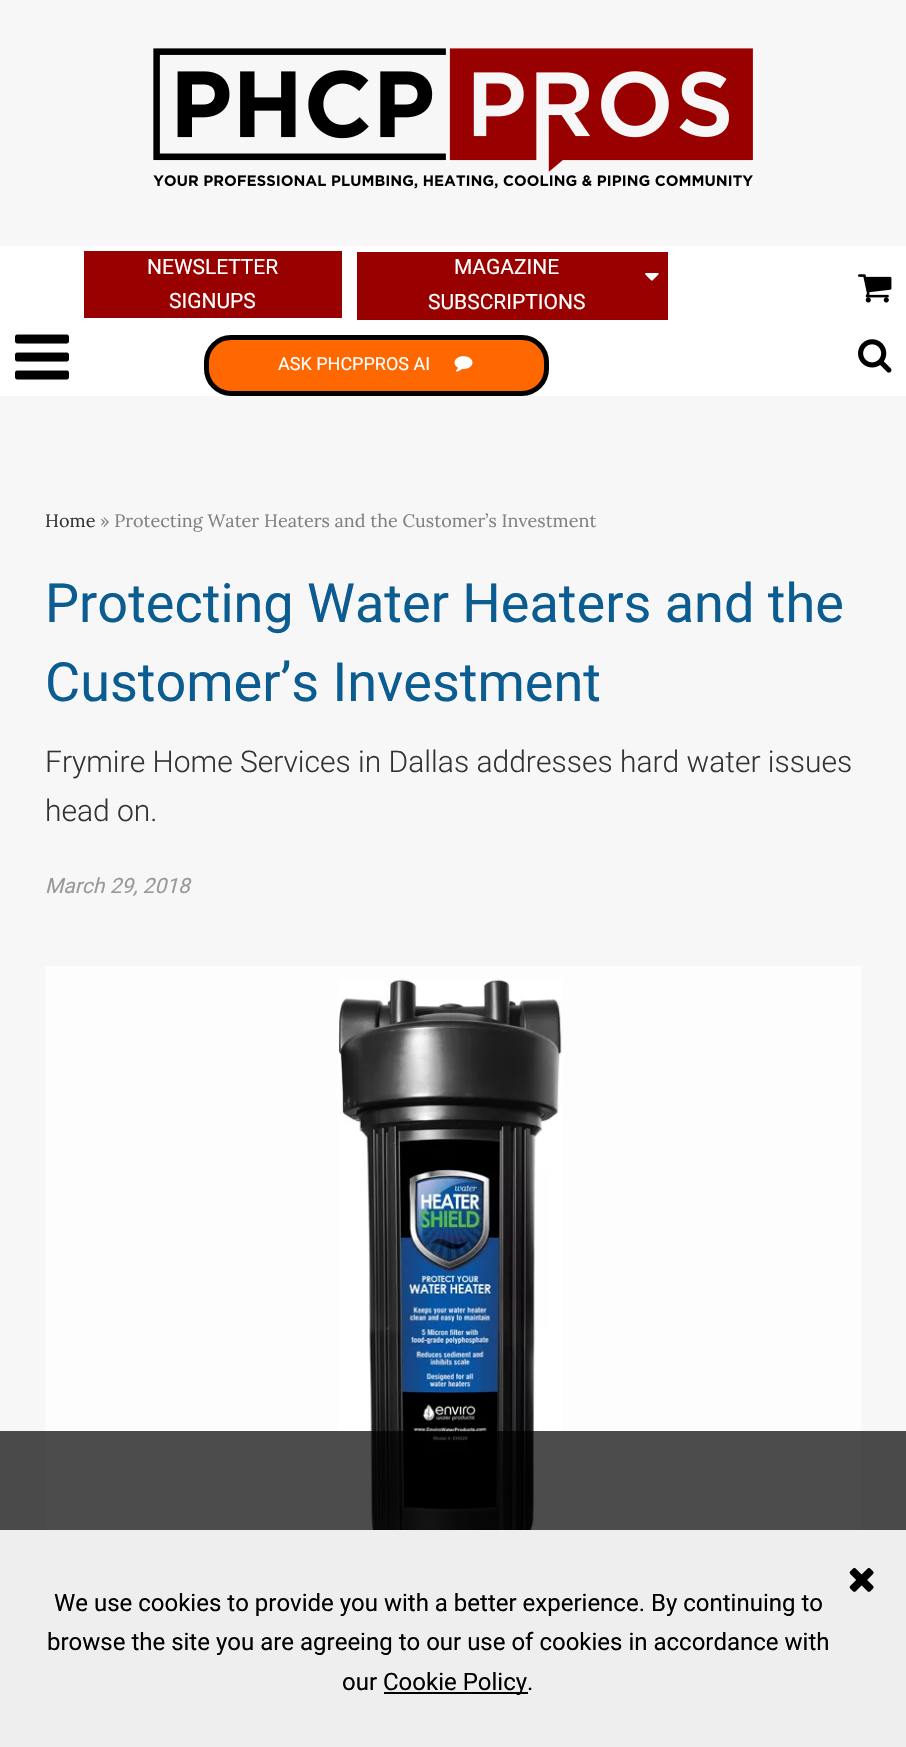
#include "include/core/SkBlurTypes.h"
#include "include/core/SkCanvas.h"
#include "include/core/SkData.h"
#include "include/core/SkFont.h"
#include "include/core/SkFontMgr.h"
#include "include/core/SkImage.h"
#include "include/core/SkMaskFilter.h"
#include "include/core/SkPaint.h"
#include "include/core/SkPathBuilder.h"
#include "include/core/SkTextBlob.h"
#include "include/effects/SkDashPathEffect.h"
#include "include/effects/SkGradientShader.h"
#include "include/utils/SkParsePath.h"

extern sk_sp<SkFontMgr> fontMgr;

void draw(SkCanvas* canvas) {
    SkPaint p;
    p.setAntiAlias(true);
    auto font = [&](const char* family, int weight, float size, bool italic = false) {
        SkFontStyle style(weight, SkFontStyle::kNormal_Width,
            italic ? SkFontStyle::kItalic_Slant : SkFontStyle::kUpright_Slant);
        SkFont result(fontMgr->matchFamilyStyle(family, style), size);
        result.setSubpixel(true);
        return result;
    };
    auto drawPhoto = [&](const char* path, float l, float t, float r, float b) {
        auto image = SkImages::DeferredFromEncodedData(SkData::MakeFromFileName(path));
        canvas->drawImageRect(image, SkRect::MakeLTRB(l, t, r, b), SkSamplingOptions());
    };
    canvas->clear(0xFFF7F7F7);
    drawPhoto("media/1.png", 153, 48, 753, 189);
    p.setColor(0xFFFFFFFF);
    canvas->drawRect(SkRect::MakeLTRB(0, 246, 906, 396), p);
    drawPhoto("media/2.png", 15, 334, 69, 380);
    p.setColor(0xFF990000);
    canvas->drawRect(SkRect::MakeLTRB(84, 251, 342, 318), p);
    auto font1 = font("Roboto", 400, 21);
    p.setColor(0xFFFFFFFF);
    canvas->drawString("NEWSLETTER", 147, 274, font1, p);
    canvas->drawString("SIGNUPS", 169, 308, font1, p);
    p.setColor(0xFF990000);
    canvas->drawRect(SkRect::MakeLTRB(357, 252, 668, 320), p);
    p.setColor(0xFFFFFFFF);
    canvas->drawString("MAGAZINE", 454, 274, font1, p);
    drawPhoto("media/3.png", 645, 273, 659, 281);
    canvas->drawString("SUBSCRIPTIONS", 428, 309, font1, p);
    p.setColor(0xFFFF6700);
    canvas->drawRoundRect(SkRect::MakeLTRB(206.5f, 337.5f, 546.5f, 393.5f), 24.5f, 24.5f, p);
    p.setStyle(SkPaint::kStroke_Style);
    p.setStrokeWidth(5);
    p.setColor(0xFF000000);
    canvas->drawRoundRect(SkRect::MakeLTRB(206.5f, 337.5f, 546.5f, 393.5f), 24.5f, 24.5f, p);
    auto font2 = font("Roboto", 400, 18);
    p.setStyle(SkPaint::kFill_Style);
    p.setColor(0xFFFFFFFF);
    canvas->drawString("ASK PHCPPROS AI", 278, 370, font2, p);
    drawPhoto("media/4.png", 454, 356, 473, 372);
    drawPhoto("media/5.png", 858, 274, 892, 303);
    drawPhoto("media/6.png", 858, 339, 892, 373);
    auto font3 = font("Lora", 400, 18);
    p.setColor(0xFF333333);
    canvas->drawString("Home", 45, 527, font3, p);
    p.setColor(0xFF808080);
    canvas->drawString("» Protecting Water Heaters and the Customer’s Investment", 100, 527, font3, p);
    auto font4 = font("Roboto", 400, 54);
    p.setColor(0xFF0B5C91);
    canvas->drawString("Protecting Water Heaters and the", 45, 622, font4, p);
    canvas->drawString("Customer’s Investment", 45, 701, font4, p);
    auto font5 = font("Roboto", 300, 30);
    p.setColor(0xFF333333);
    canvas->drawString("Frymire Home Services in Dallas addresses hard water issues", 45, 772, font5, p);
    canvas->drawString("head on.", 45, 821, font5, p);
    auto font6 = font("Roboto", 400, 21, true);
    p.setColor(0xFF999999);
    canvas->drawString("March 29, 2018", 45, 893, font6, p);
    p.setColor(0xFFFDFDFD);
    canvas->drawRect(SkRect::MakeLTRB(45, 966, 861, 1530), p);
    drawPhoto("media/7.png", 338, 979, 562, 1530);
    p.setColor(0xB3000000);
    canvas->drawRect(SkRect::MakeLTRB(0, 1431, 906, 1530), p);
    p.setColor(0xFFEEEEEE);
    canvas->drawRect(SkRect::MakeLTRB(0, 1530, 906, 1747), p);
    drawPhoto("media/8.png", 849, 1568, 874, 1592);
    auto font7 = font("Roboto", 400, 24);
    p.setColor(0xFF000000);
    {
        const struct { const char* s; float x, y; } items[] = {
            {"We use cookies to provide you with a better experience. By continuing to", 54, 1611},
            {"browse the site you are agreeing to our use of cookies in accordance with", 47, 1650},
            {"our", 342, 1690},
        };
        for (auto [s, x, y] : items) {
            canvas->drawString(s, x, y, font7, p);
        }
    }
    canvas->drawRect(SkRect::MakeLTRB(384, 1692, 528, 1694), p);
    canvas->drawString("Cookie Policy.", 383, 1690, font7, p);
}
